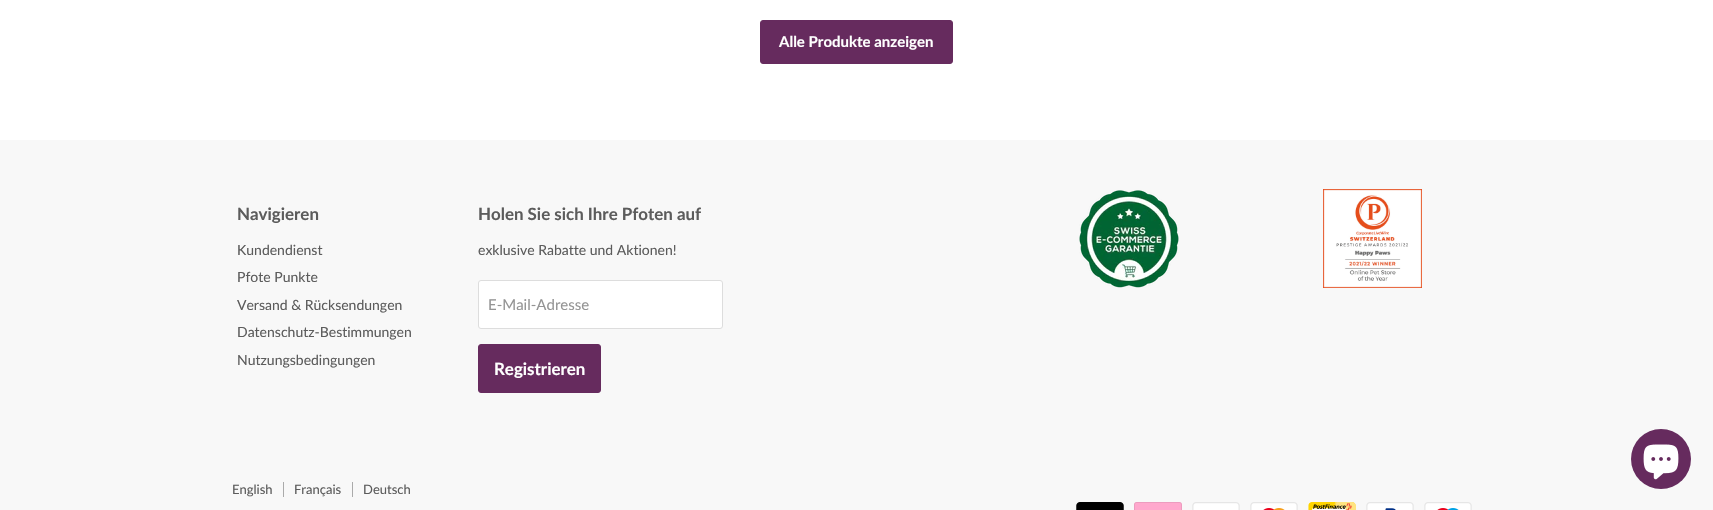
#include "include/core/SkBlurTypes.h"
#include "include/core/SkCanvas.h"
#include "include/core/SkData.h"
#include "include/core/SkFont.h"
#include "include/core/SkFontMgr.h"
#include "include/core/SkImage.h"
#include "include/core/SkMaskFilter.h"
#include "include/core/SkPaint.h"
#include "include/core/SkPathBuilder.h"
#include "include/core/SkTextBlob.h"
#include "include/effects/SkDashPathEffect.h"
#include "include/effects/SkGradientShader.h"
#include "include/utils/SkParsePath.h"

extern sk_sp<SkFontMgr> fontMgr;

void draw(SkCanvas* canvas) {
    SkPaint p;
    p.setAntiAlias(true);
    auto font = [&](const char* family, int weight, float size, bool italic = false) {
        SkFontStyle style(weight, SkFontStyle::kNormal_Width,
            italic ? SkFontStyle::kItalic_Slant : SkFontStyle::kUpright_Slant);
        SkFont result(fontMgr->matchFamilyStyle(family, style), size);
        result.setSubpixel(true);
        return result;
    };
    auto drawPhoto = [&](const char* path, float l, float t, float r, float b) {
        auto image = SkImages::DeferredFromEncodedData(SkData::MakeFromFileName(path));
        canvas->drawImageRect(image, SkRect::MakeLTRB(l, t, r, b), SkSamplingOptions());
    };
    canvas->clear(0xFFFFFFFF);
    p.setColor(0xFF662B5E);
    canvas->drawRoundRect(SkRect::MakeLTRB(760.5f, 20.5f, 952.5f, 63.5f), 2.5f, 2.5f, p);
    p.setStyle(SkPaint::kStroke_Style);
    p.setStrokeWidth(1);
    canvas->drawRoundRect(SkRect::MakeLTRB(760.5f, 20.5f, 952.5f, 63.5f), 2.5f, 2.5f, p);
    auto font1 = font("Lato", 700, 15);
    p.setStyle(SkPaint::kFill_Style);
    p.setColor(0xFFFFFFFF);
    canvas->drawString("Alle Produkte anzeigen", 779, 47, font1, p);
    p.setColor(0xFFF8F8F8);
    canvas->drawRect(SkRect::MakeLTRB(0, 140, 1713, 510), p);
    auto font2 = font("Lato", 700, 16.9f);
    p.setColor(0xFF5C5C5C);
    canvas->drawString("Navigieren", 237, 220, font2, p);
    auto font3 = font("Lato", 400, 14);
    {
        const struct { const char* s; float x, y; } items[] = {
            {"Kundendienst", 237, 255},
            {"Pfote Punkte", 237, 282},
            {"Versand & Rücksendungen", 237, 310},
            {"Datenschutz-Bestimmungen", 237, 337},
            {"Nutzungsbedingungen", 237, 365},
        };
        for (auto [s, x, y] : items) {
            canvas->drawString(s, x, y, font3, p);
        }
    }
    canvas->drawString("Holen Sie sich Ihre Pfoten auf", 478, 220, font2, p);
    canvas->drawString("exklusive Rabatte und Aktionen!", 478, 255, font3, p);
    p.setColor(0xFFFFFFFF);
    canvas->drawRoundRect(SkRect::MakeLTRB(478.5f, 280.5f, 722.5f, 328.5f), 2.5f, 2.5f, p);
    p.setStyle(SkPaint::kStroke_Style);
    p.setColor(0xFFDDDDDD);
    canvas->drawRoundRect(SkRect::MakeLTRB(478.5f, 280.5f, 722.5f, 328.5f), 2.5f, 2.5f, p);
    auto font4 = font("Lato", 400, 15);
    p.setStyle(SkPaint::kFill_Style);
    p.setColor(0xFF949494);
    canvas->drawString("E-Mail-Adresse", 488, 310, font4, p);
    p.setColor(0xFF662B5E);
    canvas->drawRoundRect(SkRect::MakeLTRB(478.5f, 344.5f, 600.5f, 392.5f), 2.5f, 2.5f, p);
    p.setStyle(SkPaint::kStroke_Style);
    canvas->drawRoundRect(SkRect::MakeLTRB(478.5f, 344.5f, 600.5f, 392.5f), 2.5f, 2.5f, p);
    p.setStyle(SkPaint::kFill_Style);
    p.setColor(0xFFFFFFFF);
    canvas->drawString("Registrieren", 494, 375, font2, p);
    drawPhoto("media/1.png", 1079, 190, 1179, 288);
    drawPhoto("media/2.png", 1323, 189, 1422, 288);
    p.setColor(0xFFAAAAAA);
    canvas->drawRect(SkRect::MakeLTRB(283, 482, 284, 497), p);
    auto font5 = font("Lato", 400, 13);
    p.setColor(0xFF5C5C5C);
    canvas->drawString("English", 232, 494, font5, p);
    p.setColor(0xFFAAAAAA);
    canvas->drawRect(SkRect::MakeLTRB(352, 482, 353, 497), p);
    p.setColor(0xFF5C5C5C);
    canvas->drawString("Français", 294, 494, font5, p);
    canvas->drawString("Deutsch", 363, 494, font5, p);
    drawPhoto("media/3.png", 1076, 502, 1124, 510);
    drawPhoto("media/4.png", 1134, 502, 1182, 510);
    drawPhoto("media/5.png", 1192, 502, 1240, 510);
    drawPhoto("media/6.png", 1250, 502, 1298, 510);
    drawPhoto("media/7.png", 1308, 502, 1356, 510);
    drawPhoto("media/8.png", 1366, 502, 1414, 510);
    drawPhoto("media/9.png", 1424, 502, 1472, 510);
    p.setColor(0xFF662B5E);
    canvas->drawCircle(1661, 459, 30, p);
    drawPhoto("media/10.png", 1643, 444, 1679, 480);
}
